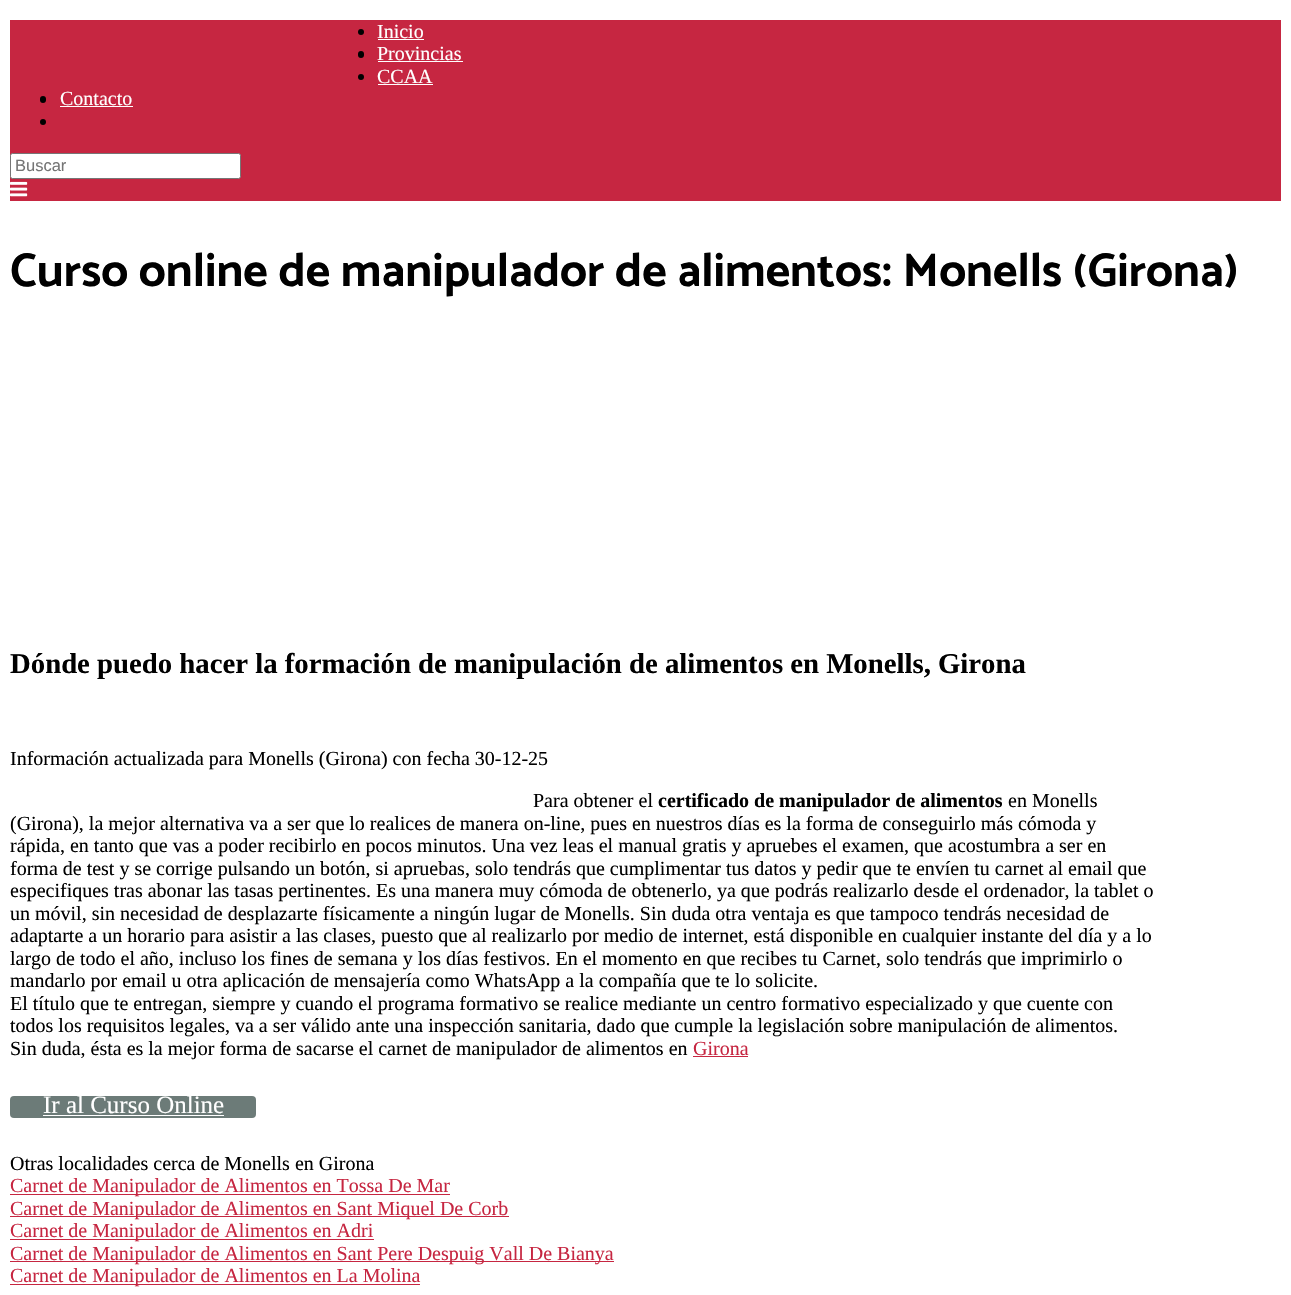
#include "include/core/SkBlurTypes.h"
#include "include/core/SkCanvas.h"
#include "include/core/SkData.h"
#include "include/core/SkFont.h"
#include "include/core/SkFontMgr.h"
#include "include/core/SkImage.h"
#include "include/core/SkMaskFilter.h"
#include "include/core/SkPaint.h"
#include "include/core/SkPathBuilder.h"
#include "include/core/SkTextBlob.h"
#include "include/effects/SkDashPathEffect.h"
#include "include/effects/SkGradientShader.h"
#include "include/utils/SkParsePath.h"

extern sk_sp<SkFontMgr> fontMgr;

void draw(SkCanvas* canvas) {
    SkPaint p;
    p.setAntiAlias(true);
    auto font = [&](const char* family, int weight, float size, bool italic = false) {
        SkFontStyle style(weight, SkFontStyle::kNormal_Width,
            italic ? SkFontStyle::kItalic_Slant : SkFontStyle::kUpright_Slant);
        SkFont result(fontMgr->matchFamilyStyle(family, style), size);
        result.setSubpixel(true);
        return result;
    };
    auto drawPhoto = [&](const char* path, float l, float t, float r, float b) {
        auto image = SkImages::DeferredFromEncodedData(SkData::MakeFromFileName(path));
        canvas->drawImageRect(image, SkRect::MakeLTRB(l, t, r, b), SkSamplingOptions());
    };
    canvas->clear(0xFFFFFFFF);
    p.setColor(0xFFC62641);
    canvas->drawRect(SkRect::MakeLTRB(10, 20, 1281, 201), p);
    p.setColor(0xFF000000);
    canvas->drawCircle(361, 32, 3, p);
    auto font1 = font("Liberation Serif", 400, 20);
    p.setColor(0xFFFFFFFF);
    canvas->drawString("Inicio", 377, 38, font1, p);
    canvas->drawRect(SkRect::MakeLTRB(378, 39, 424, 40), p);
    p.setColor(0xFF000000);
    canvas->drawRoundRect(SkRect::MakeLTRB(358, 51, 364, 58), 3, 3, p);
    p.setColor(0xFFFFFFFF);
    canvas->drawString("Provincias", 377, 60, font1, p);
    canvas->drawRect(SkRect::MakeLTRB(378, 61, 463, 62), p);
    p.setColor(0xFF000000);
    canvas->drawCircle(361, 77, 3, p);
    p.setColor(0xFFFFFFFF);
    canvas->drawString("CCAA", 377, 83, font1, p);
    canvas->drawRect(SkRect::MakeLTRB(378, 84, 433, 85), p);
    p.setColor(0xFF000000);
    canvas->drawRoundRect(SkRect::MakeLTRB(40, 96, 46, 103), 3, 3, p);
    p.setColor(0xFFFFFFFF);
    canvas->drawString("Contacto", 60, 105, font1, p);
    canvas->drawRect(SkRect::MakeLTRB(60, 106, 133, 107), p);
    p.setColor(0xFF000000);
    canvas->drawCircle(43, 122, 3, p);
    p.setColor(0xFFFFFFFF);
    canvas->drawRoundRect(SkRect::MakeLTRB(10.5f, 153.5f, 240.5f, 178.5f), 2, 2, p);
    p.setStyle(SkPaint::kStroke_Style);
    p.setStrokeWidth(1);
    p.setColor(0xFF767676);
    canvas->drawRoundRect(SkRect::MakeLTRB(10.5f, 153.5f, 240.5f, 178.5f), 2, 2, p);
    auto font2 = font("Liberation Sans", 400, 16.5f);
    p.setStyle(SkPaint::kFill_Style);
    p.setColor(0xFF757575);
    canvas->drawString("Buscar", 15, 171, font2, p);
    drawPhoto("media/1.png", 10, 181, 28, 197);
    auto font3 = font("Catamaran", 700, 47.5f);
    p.setColor(0xFF000000);
    canvas->drawString("Curso online de manipulador de alimentos: Monells (Girona)", 10, 286, font3, p);
    auto font4 = font("Liberation Serif", 700, 28.75f);
    canvas->drawString("Dónde puedo hacer la formación de manipulación de alimentos en Monells, Girona", 10, 673, font4, p);
    canvas->drawString("Información actualizada para Monells (Girona) con fecha 30-12-25", 10, 765, font1, p);
    canvas->drawString("Para obtener el", 533, 807, font1, p);
    auto font5 = font("Liberation Serif", 700, 20);
    canvas->drawString("certificado de manipulador de alimentos", 658, 807, font5, p);
    {
        const struct { const char* s; float x, y; } items[] = {
            {"en Monells", 1008, 807},
            {"(Girona), la mejor alternativa va a ser que lo realices de manera on-line, pues en nuestros días es la forma de conseguirlo más cómoda y", 10, 830},
            {"rápida, en tanto que vas a poder recibirlo en pocos minutos. Una vez leas el manual gratis y apruebes el examen, que acostumbra a ser en", 10, 852},
            {"forma de test y se corrige pulsando un botón, si apruebas, solo tendrás que cumplimentar tus datos y pedir que te envíen tu carnet al email que", 10, 875},
            {"especifiques tras abonar las tasas pertinentes. Es una manera muy cómoda de obtenerlo, ya que podrás realizarlo desde el ordenador, la tablet o", 10, 897},
            {"un móvil, sin necesidad de desplazarte físicamente a ningún lugar de Monells. Sin duda otra ventaja es que tampoco tendrás necesidad de", 10, 920},
            {"adaptarte a un horario para asistir a las clases, puesto que al realizarlo por medio de internet, está disponible en cualquier instante del día y a lo", 10, 942},
            {"largo de todo el año, incluso los fines de semana y los días festivos. En el momento en que recibes tu Carnet, solo tendrás que imprimirlo o", 10, 965},
            {"mandarlo por email u otra aplicación de mensajería como WhatsApp a la compañía que te lo solicite.", 10, 987},
            {"El título que te entregan, siempre y cuando el programa formativo se realice mediante un centro formativo especializado y que cuente con", 10, 1010},
            {"todos los requisitos legales, va a ser válido ante una inspección sanitaria, dado que cumple la legislación sobre manipulación de alimentos.", 10, 1032},
            {"Sin duda, ésta es la mejor forma de sacarse el carnet de manipulador de alimentos en", 10, 1055},
        };
        for (auto [s, x, y] : items) {
            canvas->drawString(s, x, y, font1, p);
        }
    }
    p.setColor(0xFFC62641);
    canvas->drawString("Girona", 693, 1055, font1, p);
    canvas->drawRect(SkRect::MakeLTRB(693, 1056, 748, 1057), p);
    p.setColor(0xFF6C7B78);
    canvas->drawRoundRect(SkRect::MakeLTRB(10, 1096, 256, 1118), 4, 4, p);
    auto font6 = font("Liberation Serif", 400, 25);
    p.setColor(0xFFFFFFFF);
    canvas->drawString("Ir al Curso Online", 43, 1113, font6, p);
    canvas->drawRect(SkRect::MakeLTRB(43, 1115, 224, 1116), p);
    p.setColor(0xFF000000);
    canvas->drawString("Otras localidades cerca de Monells en Girona", 10, 1170, font1, p);
    p.setColor(0xFFC62641);
    canvas->drawRect(SkRect::MakeLTRB(10, 1194, 450, 1195), p);
    canvas->drawString("Carnet de Manipulador de Alimentos en Tossa De Mar", 10, 1192, font1, p);
    canvas->drawRect(SkRect::MakeLTRB(10, 1216, 509, 1217), p);
    canvas->drawString("Carnet de Manipulador de Alimentos en Sant Miquel De Corb", 10, 1215, font1, p);
    canvas->drawRect(SkRect::MakeLTRB(10, 1239, 374, 1240), p);
    canvas->drawString("Carnet de Manipulador de Alimentos en Adri", 10, 1237, font1, p);
    canvas->drawRect(SkRect::MakeLTRB(10, 1261, 614, 1262), p);
    canvas->drawString("Carnet de Manipulador de Alimentos en Sant Pere Despuig Vall De Bianya", 10, 1260, font1, p);
    canvas->drawRect(SkRect::MakeLTRB(10, 1284, 420, 1285), p);
    canvas->drawString("Carnet de Manipulador de Alimentos en La Molina", 10, 1282, font1, p);
}
